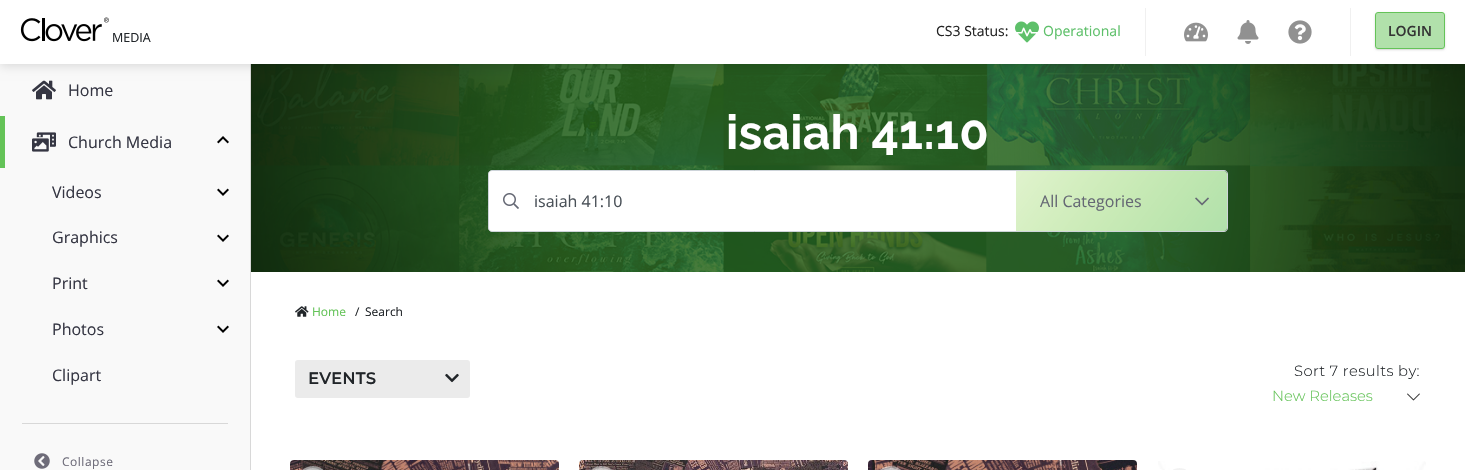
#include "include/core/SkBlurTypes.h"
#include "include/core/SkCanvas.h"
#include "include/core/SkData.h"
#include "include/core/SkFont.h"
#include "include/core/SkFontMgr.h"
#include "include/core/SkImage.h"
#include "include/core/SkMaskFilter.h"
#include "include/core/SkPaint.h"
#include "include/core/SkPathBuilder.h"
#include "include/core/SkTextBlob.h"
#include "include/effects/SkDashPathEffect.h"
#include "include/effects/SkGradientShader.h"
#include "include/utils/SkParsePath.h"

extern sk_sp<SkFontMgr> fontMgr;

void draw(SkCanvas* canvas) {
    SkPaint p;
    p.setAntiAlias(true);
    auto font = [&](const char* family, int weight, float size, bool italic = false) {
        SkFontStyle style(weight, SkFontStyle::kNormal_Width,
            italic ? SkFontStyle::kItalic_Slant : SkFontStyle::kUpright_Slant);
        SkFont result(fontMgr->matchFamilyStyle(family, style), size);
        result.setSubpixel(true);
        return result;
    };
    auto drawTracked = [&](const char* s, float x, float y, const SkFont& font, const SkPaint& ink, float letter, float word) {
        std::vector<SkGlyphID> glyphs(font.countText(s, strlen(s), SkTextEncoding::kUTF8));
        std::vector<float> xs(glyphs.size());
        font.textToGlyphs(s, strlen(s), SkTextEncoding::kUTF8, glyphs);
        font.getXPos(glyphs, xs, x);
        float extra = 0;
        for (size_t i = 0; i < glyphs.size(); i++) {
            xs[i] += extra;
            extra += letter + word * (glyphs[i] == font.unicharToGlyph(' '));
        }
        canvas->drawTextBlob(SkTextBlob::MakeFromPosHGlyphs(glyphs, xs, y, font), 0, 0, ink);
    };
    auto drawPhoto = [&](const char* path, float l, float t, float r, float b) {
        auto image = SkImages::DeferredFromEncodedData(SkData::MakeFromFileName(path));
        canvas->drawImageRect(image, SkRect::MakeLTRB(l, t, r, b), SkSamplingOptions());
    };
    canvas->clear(0xFFFFFFFF);
    p.setColor(0xFFF9F9F9);
    canvas->drawRect(SkRect::MakeLTRB(0, 64, 250, 470), p);
    p.setColor(0xFFD8D8D8);
    canvas->drawRect(SkRect::MakeLTRB(250, 64, 251, 470), p);
    drawPhoto("media/6.png", 32, 80, 56, 100);
    drawPhoto("media/11.png", 251, 64, 1465, 272);
    auto font1 = font("Raleway", 700, 48);
    p.setColor(0xFFFFFFFF);
    drawTracked("isaiah 41:10", 726, 149, font1, p, 0.25f, 0);
    {
        const SkColor colors[] = {0x00000000, 0xFF000000};
        const float stops[] = {0.33f, 1};
        p.setShader(SkGradientShader::MakeRadial({858, 168}, 924, colors, stops, 2, SkTileMode::kClamp));
        p.setAlpha(255);
    }
    canvas->drawRect(SkRect::MakeLTRB(251, 64, 1465, 272), p);
    p.setShader(nullptr);
    p.setColor(0x21000000);
    p.setMaskFilter(SkMaskFilter::MakeBlur(kNormal_SkBlurStyle, 5));
    canvas->drawRect(SkRect::MakeLTRB(0, 2, 1465, 66), p);
    p.setMaskFilter(nullptr);
    p.setColor(0xFFFFFFFF);
    canvas->drawRect(SkRect::MakeLTRB(0, 0, 1465, 64), p);
    drawPhoto("media/1.png", 20, 17, 109, 42);
    auto font2 = font("Open Sans", 400, 12.5f);
    p.setColor(0xFF212529);
    canvas->drawString("MEDIA", 112, 42, font2, p);
    auto font3 = font("Open Sans", 400, 14);
    p.setColor(0xFF232323);
    canvas->drawString("CS3 Status:", 936, 36, font3, p);
    drawPhoto("media/2.png", 1015, 21, 1039, 43);
    p.setColor(0xFF5EC06A);
    canvas->drawString("Operational", 1043, 36, font3, p);
    p.setColor(0xFFF0F0F0);
    canvas->drawRect(SkRect::MakeLTRB(1145, 8, 1146, 56), p);
    drawPhoto("media/3.png", 1184, 22, 1208, 42);
    drawPhoto("media/4.png", 1237, 20, 1259, 44);
    drawPhoto("media/5.png", 1288, 20, 1312, 44);
    canvas->drawRect(SkRect::MakeLTRB(1350, 8, 1351, 56), p);
    canvas->save();
    canvas->clipPath(SkPathBuilder(SkPathFillType::kEvenOdd).moveTo(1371, 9).lineTo(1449, 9).lineTo(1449, 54).lineTo(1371, 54).close().moveTo(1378, 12).lineTo(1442, 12).cubicTo(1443.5f, 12, 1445, 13.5f, 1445, 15).lineTo(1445, 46).cubicTo(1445, 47.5f, 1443.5f, 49, 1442, 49).lineTo(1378, 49).cubicTo(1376.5f, 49, 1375, 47.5f, 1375, 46).lineTo(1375, 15).cubicTo(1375, 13.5f, 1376.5f, 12, 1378, 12).close().detach(), true);
    p.setColor(0x29000000);
    p.setMaskFilter(SkMaskFilter::MakeBlur(kNormal_SkBlurStyle, 1));
    canvas->drawRoundRect(SkRect::MakeLTRB(1375, 13, 1445, 50), 3, 3, p);
    p.setMaskFilter(nullptr);
    canvas->restore();
    p.setColor(0x8064C358);
    canvas->drawRoundRect(SkRect::MakeLTRB(1375.5f, 12.5f, 1444.5f, 48.5f), 2.5f, 2.5f, p);
    p.setStyle(SkPaint::kStroke_Style);
    p.setStrokeWidth(1);
    p.setColor(0xFF64C358);
    canvas->drawRoundRect(SkRect::MakeLTRB(1375.5f, 12.5f, 1444.5f, 48.5f), 2.5f, 2.5f, p);
    auto font4 = font("Open Sans", 600, 14);
    p.setStyle(SkPaint::kFill_Style);
    p.setColor(0xFF343434);
    canvas->drawString("LOGIN", 1388, 36, font4, p);
    auto font5 = font("Open Sans", 400, 16);
    p.setColor(0xFF353643);
    canvas->drawString("Home", 68, 96, font5, p);
    p.setColor(0xFF64C358);
    canvas->drawRect(SkRect::MakeLTRB(0, 116, 5, 168), p);
    drawPhoto("media/7.png", 32, 132, 56, 152);
    p.setColor(0xFF353643);
    canvas->drawString("Church Media", 68, 148, font5, p);
    drawPhoto("media/8.png", 217, 136, 229, 144);
    canvas->drawString("Videos", 52, 198, font5, p);
    drawPhoto("media/9.png", 217, 188, 229, 196);
    canvas->drawString("Graphics", 52, 243, font5, p);
    drawPhoto("media/9.png", 217, 234, 229, 242);
    canvas->drawString("Print", 52, 289, font5, p);
    drawPhoto("media/9.png", 217, 279, 229, 287);
    canvas->drawString("Photos", 52, 335, font5, p);
    drawPhoto("media/9.png", 217, 325, 229, 333);
    canvas->drawString("Clipart", 52, 381, font5, p);
    p.setColor(0xFFD8D8D8);
    canvas->drawRect(SkRect::MakeLTRB(22, 423, 228, 424), p);
    drawPhoto("media/10.png", 34, 453, 50, 469);
    auto font6 = font("Open Sans", 400, 12);
    p.setColor(0xFF6E6C79);
    drawTracked("Collapse", 62, 466, font6, p, 0.5f, 0);
    p.setColor(0xFFFFFFFF);
    canvas->drawPath(SkPathBuilder().moveTo(492, 170.5f).lineTo(1016.5f, 170.5f).lineTo(1016.5f, 231.5f).lineTo(492, 231.5f).cubicTo(490, 231.5f, 488.5f, 230, 488.5f, 228).lineTo(488.5f, 174).cubicTo(488.5f, 172, 490, 170.5f, 492, 170.5f).close().detach(), p);
    p.setStyle(SkPaint::kStroke_Style);
    p.setColor(0xFFCED4DA);
    canvas->drawPath(SkPathBuilder().moveTo(492, 170.5f).lineTo(1016.5f, 170.5f).lineTo(1016.5f, 231.5f).lineTo(492, 231.5f).cubicTo(490, 231.5f, 488.5f, 230, 488.5f, 228).lineTo(488.5f, 174).cubicTo(488.5f, 172, 490, 170.5f, 492, 170.5f).close().detach(), p);
    drawPhoto("media/12.png", 503, 193, 519, 209);
    p.setStyle(SkPaint::kFill_Style);
    p.setColor(0xFF495057);
    canvas->drawString("isaiah 41:10", 534, 207, font5, p);
    p.setColor(0xFFFFFFFF);
    canvas->drawPath(SkPathBuilder().moveTo(1016, 171).lineTo(1224, 171).cubicTo(1225.5f, 171, 1227, 172.5f, 1227, 174).lineTo(1227, 228).cubicTo(1227, 229.5f, 1225.5f, 231, 1224, 231).lineTo(1016, 231).close().detach(), p);
    {
        const SkColor colors[] = {0x3364C308, 0x8064C358};
        const float stops[] = {0, 1};
        const SkPoint ends[] = {{1040, 139}, {1203, 263}};
        p.setShader(SkGradientShader::MakeLinear(ends, colors, stops, 2, SkTileMode::kClamp));
        p.setAlpha(255);
    }
    canvas->drawPath(SkPathBuilder().moveTo(1016, 171).lineTo(1224, 171).cubicTo(1225.5f, 171, 1227, 172.5f, 1227, 174).lineTo(1227, 228).cubicTo(1227, 229.5f, 1225.5f, 231, 1224, 231).lineTo(1016, 231).close().detach(), p);
    p.setShader(nullptr);
    p.setColor(0xFFCED4DA);
    canvas->drawPath(SkPathBuilder(SkPathFillType::kEvenOdd).moveTo(1016, 170).lineTo(1224, 170).cubicTo(1226, 170, 1228, 172, 1228, 174).lineTo(1228, 228).cubicTo(1228, 230, 1226, 232, 1224, 232).lineTo(1016, 232).close().moveTo(1016, 171).lineTo(1224, 171).cubicTo(1226, 171, 1227, 172, 1227, 174).lineTo(1227, 228).cubicTo(1227, 230, 1226, 231, 1224, 231).lineTo(1016, 231).close().detach(), p);
    p.setColor(0xFF656874);
    canvas->drawString("All Categories", 1040, 207, font5, p);
    drawPhoto("media/13.png", 1195, 197, 1209, 206);
    drawPhoto("media/14.png", 295, 306, 309, 317);
    p.setColor(0xFF64C358);
    canvas->drawString("Home", 312, 316, font6, p);
    p.setColor(0xFF212529);
    canvas->drawString("/", 355, 316, font6, p);
    canvas->drawString("Search", 365, 316, font6, p);
    p.setColor(0xFFEBEBEB);
    canvas->drawRoundRect(SkRect::MakeLTRB(295, 360, 470, 398), 3, 3, p);
    auto font7 = font("Montserrat", 700, 16);
    p.setColor(0xFF212529);
    drawTracked("EVENTS", 308, 384, font7, p, 0.5f, 0);
    drawPhoto("media/15.png", 445, 373, 459, 383);
    auto font8 = font("Montserrat", 300, 14.75f);
    drawTracked("Sort 7 results by:", 1294, 376, font8, p, 0.4f, 0);
    p.setColor(0xFF64C358);
    canvas->drawString("New Releases", 1272, 401, font8, p);
    drawPhoto("media/16.png", 1407, 393, 1420, 401);
    drawPhoto("media/17.png", 290, 460, 559, 470);
    drawPhoto("media/18.png", 302, 466, 324, 470);
    drawPhoto("media/19.png", 579, 460, 848, 470);
    drawPhoto("media/20.png", 591, 466, 612, 470);
    drawPhoto("media/21.png", 868, 460, 1137, 470);
    drawPhoto("media/22.png", 880, 466, 901, 470);
    drawPhoto("media/23.png", 1158, 461, 1426, 470);
    drawPhoto("media/24.png", 1173, 468, 1186, 470);
}
